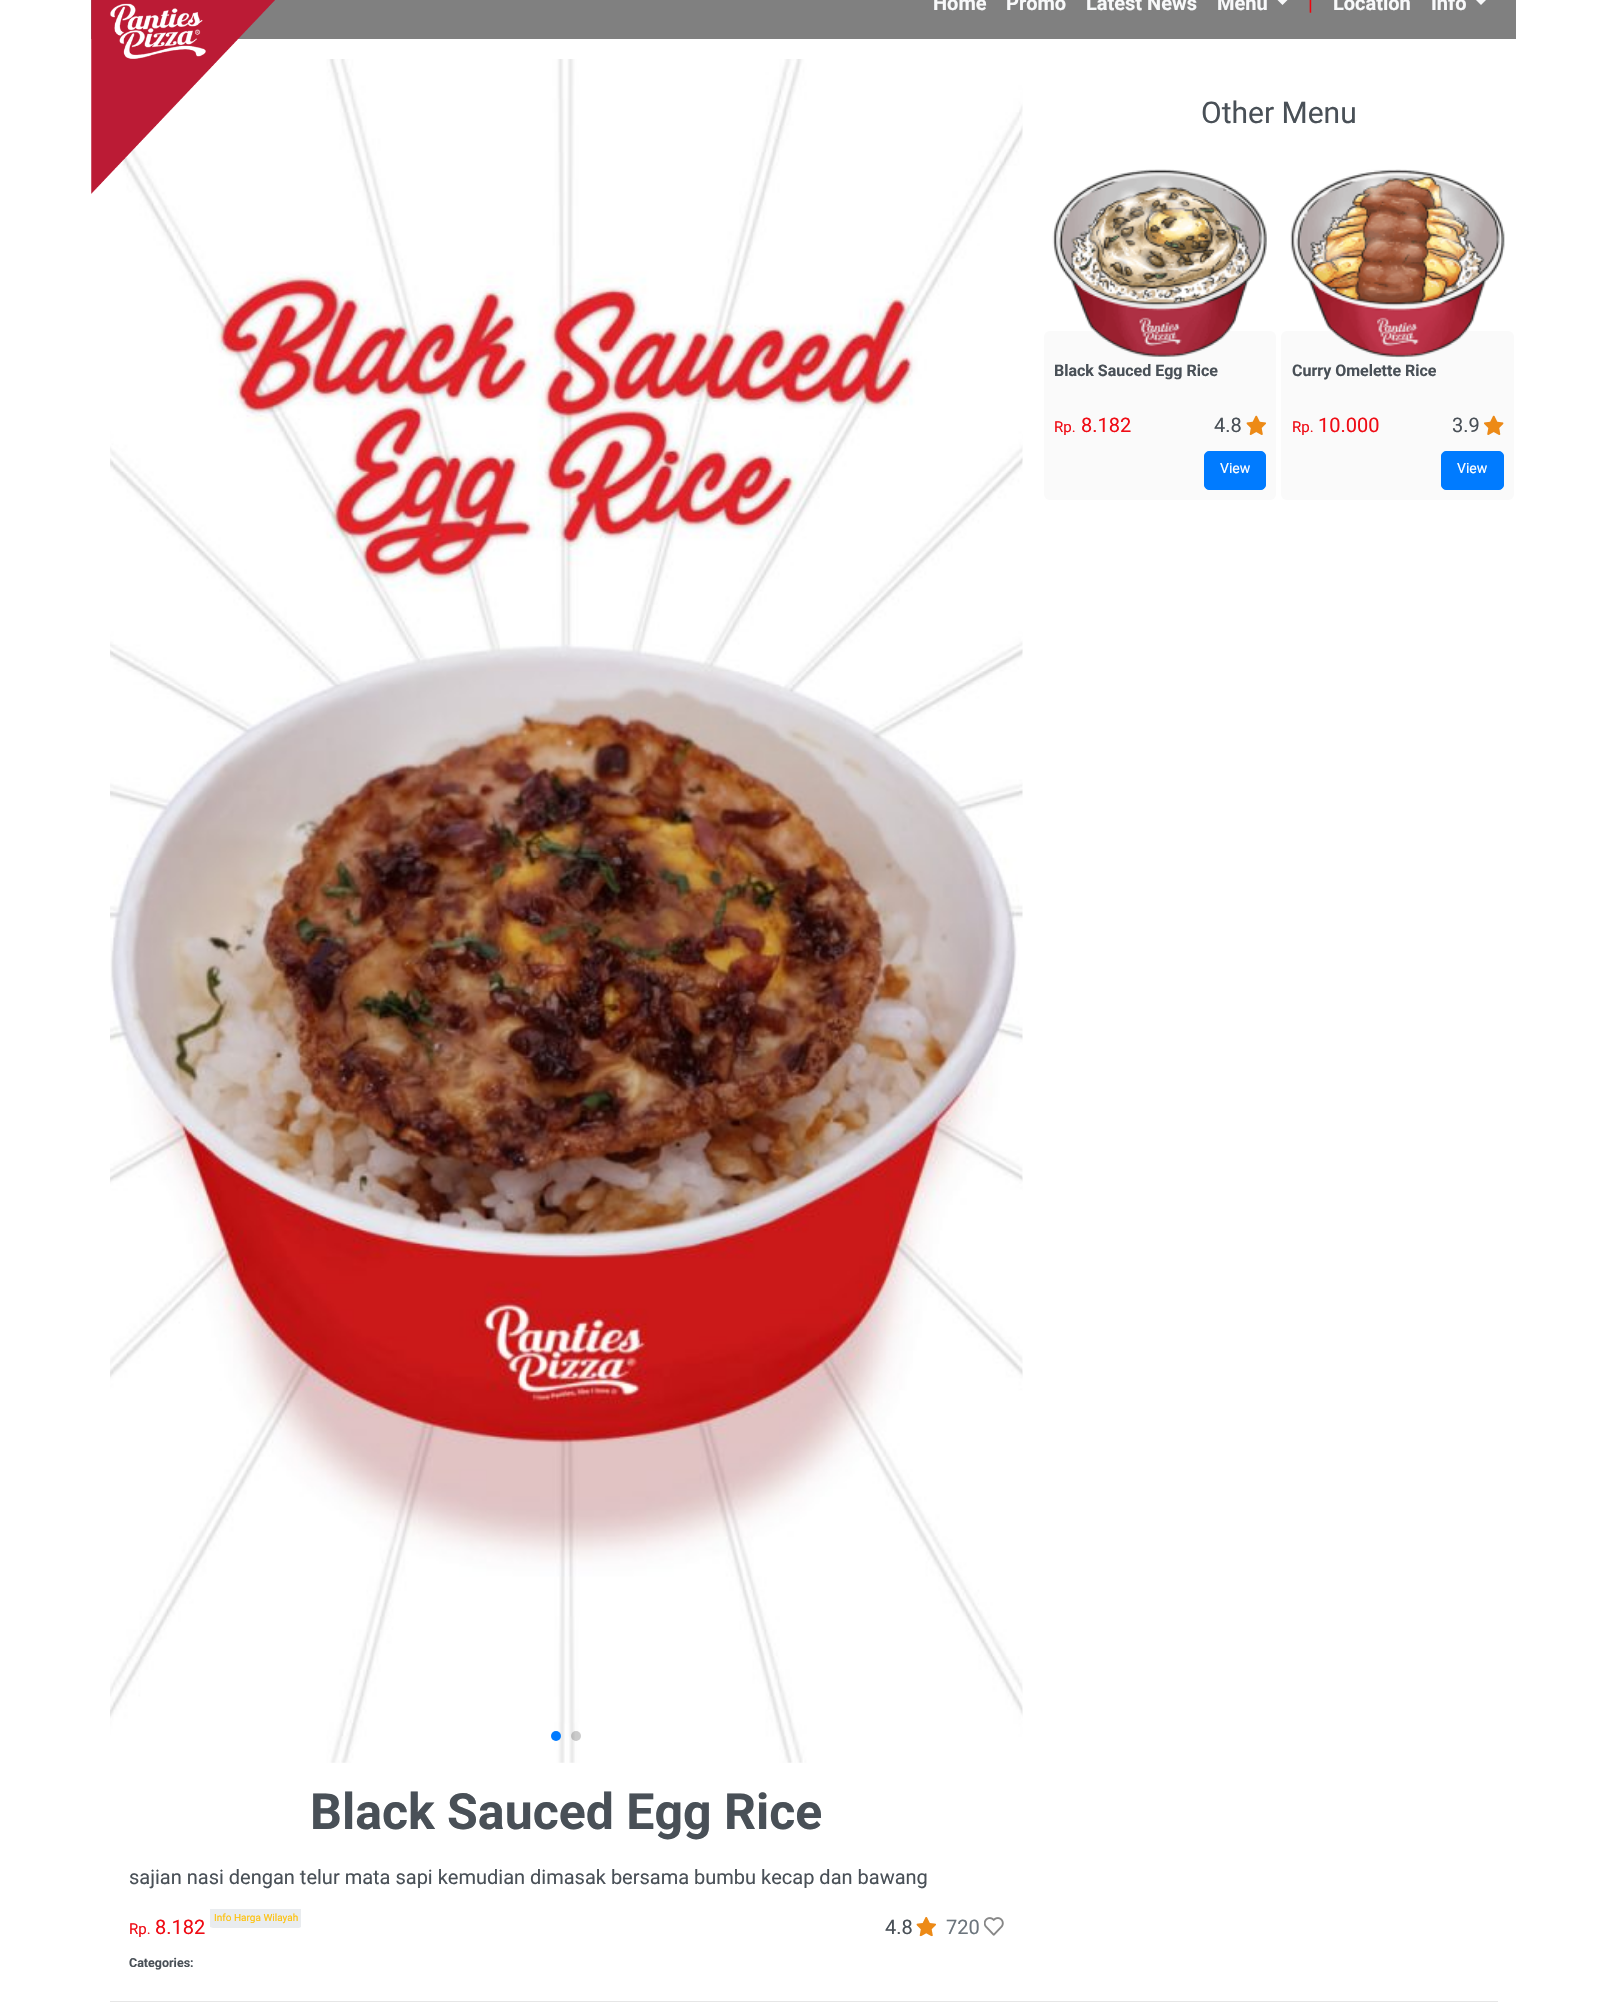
#include "include/core/SkBlurTypes.h"
#include "include/core/SkCanvas.h"
#include "include/core/SkData.h"
#include "include/core/SkFont.h"
#include "include/core/SkFontMgr.h"
#include "include/core/SkImage.h"
#include "include/core/SkMaskFilter.h"
#include "include/core/SkPaint.h"
#include "include/core/SkPathBuilder.h"
#include "include/core/SkTextBlob.h"
#include "include/effects/SkDashPathEffect.h"
#include "include/effects/SkGradientShader.h"
#include "include/utils/SkParsePath.h"

extern sk_sp<SkFontMgr> fontMgr;

void draw(SkCanvas* canvas) {
    SkPaint p;
    p.setAntiAlias(true);
    auto font = [&](const char* family, int weight, float size, bool italic = false) {
        SkFontStyle style(weight, SkFontStyle::kNormal_Width,
            italic ? SkFontStyle::kItalic_Slant : SkFontStyle::kUpright_Slant);
        SkFont result(fontMgr->matchFamilyStyle(family, style), size);
        result.setSubpixel(true);
        return result;
    };
    auto drawPhoto = [&](const char* path, float l, float t, float r, float b) {
        auto image = SkImages::DeferredFromEncodedData(SkData::MakeFromFileName(path));
        canvas->drawImageRect(image, SkRect::MakeLTRB(l, t, r, b), SkSamplingOptions());
    };
    canvas->clear(0xFFFFFFFF);
    p.setColor(0xFF808080);
    canvas->drawRect(SkRect::MakeLTRB(91, 0, 1516, 39), p);
    drawPhoto("media/6.png", 110, 59, 1023, 1763);
    drawPhoto("media/1.png", 91, 0, 275, 194);
    auto font1 = font("Roboto", 700, 20);
    p.setColor(0xFFF8F9FA);
    {
        const struct { const char* s; float x, y; } items[] = {
            {"Home", 933, 10},
            {"Promo", 1006, 10},
            {"Latest News", 1086, 10},
            {"Menu", 1217, 10},
        };
        for (auto [s, x, y] : items) {
            canvas->drawString(s, x, y, font1, p);
        }
    }
    canvas->drawPath(SkPathBuilder().moveTo(1277.5f, 0).lineTo(1287.5f, 0).lineTo(1282.5f, 5).close().detach(), p);
    auto font2 = font("Roboto", 400, 20);
    p.setColor(0xFFEF040D);
    canvas->drawString("|", 1308, 10, font2, p);
    p.setColor(0xFFF8F9FA);
    canvas->drawString("Location", 1333, 10, font1, p);
    canvas->drawString("Info", 1431, 10, font1, p);
    canvas->drawPath(SkPathBuilder().moveTo(1476, 0).lineTo(1486, 0).lineTo(1481, 5).close().detach(), p);
    auto font3 = font("Roboto", 400, 30);
    p.setColor(0xFF495057);
    canvas->drawString("Other Menu", 1201, 123, font3, p);
    p.setColor(0xFFFAFAFA);
    canvas->drawRoundRect(SkRect::MakeLTRB(1044, 331, 1276, 500), 6, 6, p);
    drawPhoto("media/2.png", 1052, 169, 1267, 357);
    auto font4 = font("Roboto", 700, 16);
    p.setColor(0xFF495057);
    canvas->drawString("Black Sauced Egg Rice", 1054, 376, font4, p);
    auto font5 = font("Roboto", 400, 15);
    p.setColor(0xFFEF0C15);
    canvas->drawString("Rp.", 1054, 432, font5, p);
    canvas->drawString("8.182", 1081, 432, font2, p);
    p.setColor(0xFF495057);
    canvas->drawString("4.8", 1214, 432, font2, p);
    drawPhoto("media/3.png", 1246, 415, 1266, 435);
    p.setColor(0xFF007BFF);
    canvas->drawRoundRect(SkRect::MakeLTRB(1204.5f, 451.5f, 1265.5f, 489.5f), 4.5f, 4.5f, p);
    p.setStyle(SkPaint::kStroke_Style);
    p.setStrokeWidth(1);
    canvas->drawRoundRect(SkRect::MakeLTRB(1204.5f, 451.5f, 1265.5f, 489.5f), 4.5f, 4.5f, p);
    auto font6 = font("Roboto", 400, 14);
    p.setStyle(SkPaint::kFill_Style);
    p.setColor(0xFFFFFFFF);
    canvas->drawString("View", 1220, 473, font6, p);
    p.setColor(0xFFFAFAFA);
    canvas->drawRoundRect(SkRect::MakeLTRB(1281, 331, 1514, 500), 6, 6, p);
    drawPhoto("media/4.png", 1290, 169, 1505, 358);
    p.setColor(0xFF495057);
    canvas->drawString("Curry Omelette Rice", 1292, 376, font4, p);
    p.setColor(0xFFEF0C15);
    canvas->drawString("Rp.", 1292, 432, font5, p);
    canvas->drawString("10.000", 1318, 432, font2, p);
    p.setColor(0xFF495057);
    canvas->drawString("3.9", 1452, 432, font2, p);
    drawPhoto("media/5.png", 1484, 415, 1504, 435);
    p.setColor(0xFF007BFF);
    canvas->drawRoundRect(SkRect::MakeLTRB(1441.5f, 451.5f, 1503.5f, 489.5f), 4.5f, 4.5f, p);
    p.setStyle(SkPaint::kStroke_Style);
    canvas->drawRoundRect(SkRect::MakeLTRB(1441.5f, 451.5f, 1503.5f, 489.5f), 4.5f, 4.5f, p);
    p.setStyle(SkPaint::kFill_Style);
    p.setColor(0xFFFFFFFF);
    canvas->drawString("View", 1457, 473, font6, p);
    p.setColor(0xFF007AFF);
    canvas->drawCircle(556, 1736, 5, p);
    p.setColor(0x33000000);
    canvas->drawCircle(576, 1736, 5, p);
    auto font7 = font("Roboto", 700, 50);
    p.setColor(0xFF495057);
    canvas->drawString("Black Sauced Egg Rice", 310, 1829, font7, p);
    canvas->drawString("sajian nasi dengan telur mata sapi kemudian dimasak bersama bumbu kecap dan bawang", 129, 1884, font2, p);
    p.setColor(0xFFEF0C15);
    canvas->drawString("Rp.", 129, 1934, font5, p);
    canvas->drawString("8.182", 155, 1934, font2, p);
    p.setColor(0xFFE9ECEF);
    canvas->drawPath(SkPathBuilder().moveTo(213, 1909).lineTo(299, 1909).lineTo(301, 1909).lineTo(301, 1927).lineTo(299, 1928).lineTo(213, 1928).lineTo(210, 1927).lineTo(210, 1909).close().detach(), p);
    auto font8 = font("Roboto", 400, 10);
    p.setColor(0xFFFFC107);
    canvas->drawString("Info Harga Wilayah", 214, 1921, font8, p);
    p.setColor(0xFF495057);
    canvas->drawString("4.8", 885, 1934, font2, p);
    drawPhoto("media/7.png", 916, 1917, 936, 1937);
    p.setColor(0xFF6C757D);
    canvas->drawString("720", 946, 1934, font2, p);
    drawPhoto("media/8.png", 984, 1917, 1004, 1936);
    auto font9 = font("Roboto", 700, 12.5f);
    p.setColor(0xFF495057);
    canvas->drawString("Categories:", 129, 1967, font9, p);
    p.setColor(0xFFE6E6E6);
    canvas->drawRect(SkRect::MakeLTRB(110, 2001, 1498, 2002), p);
}
